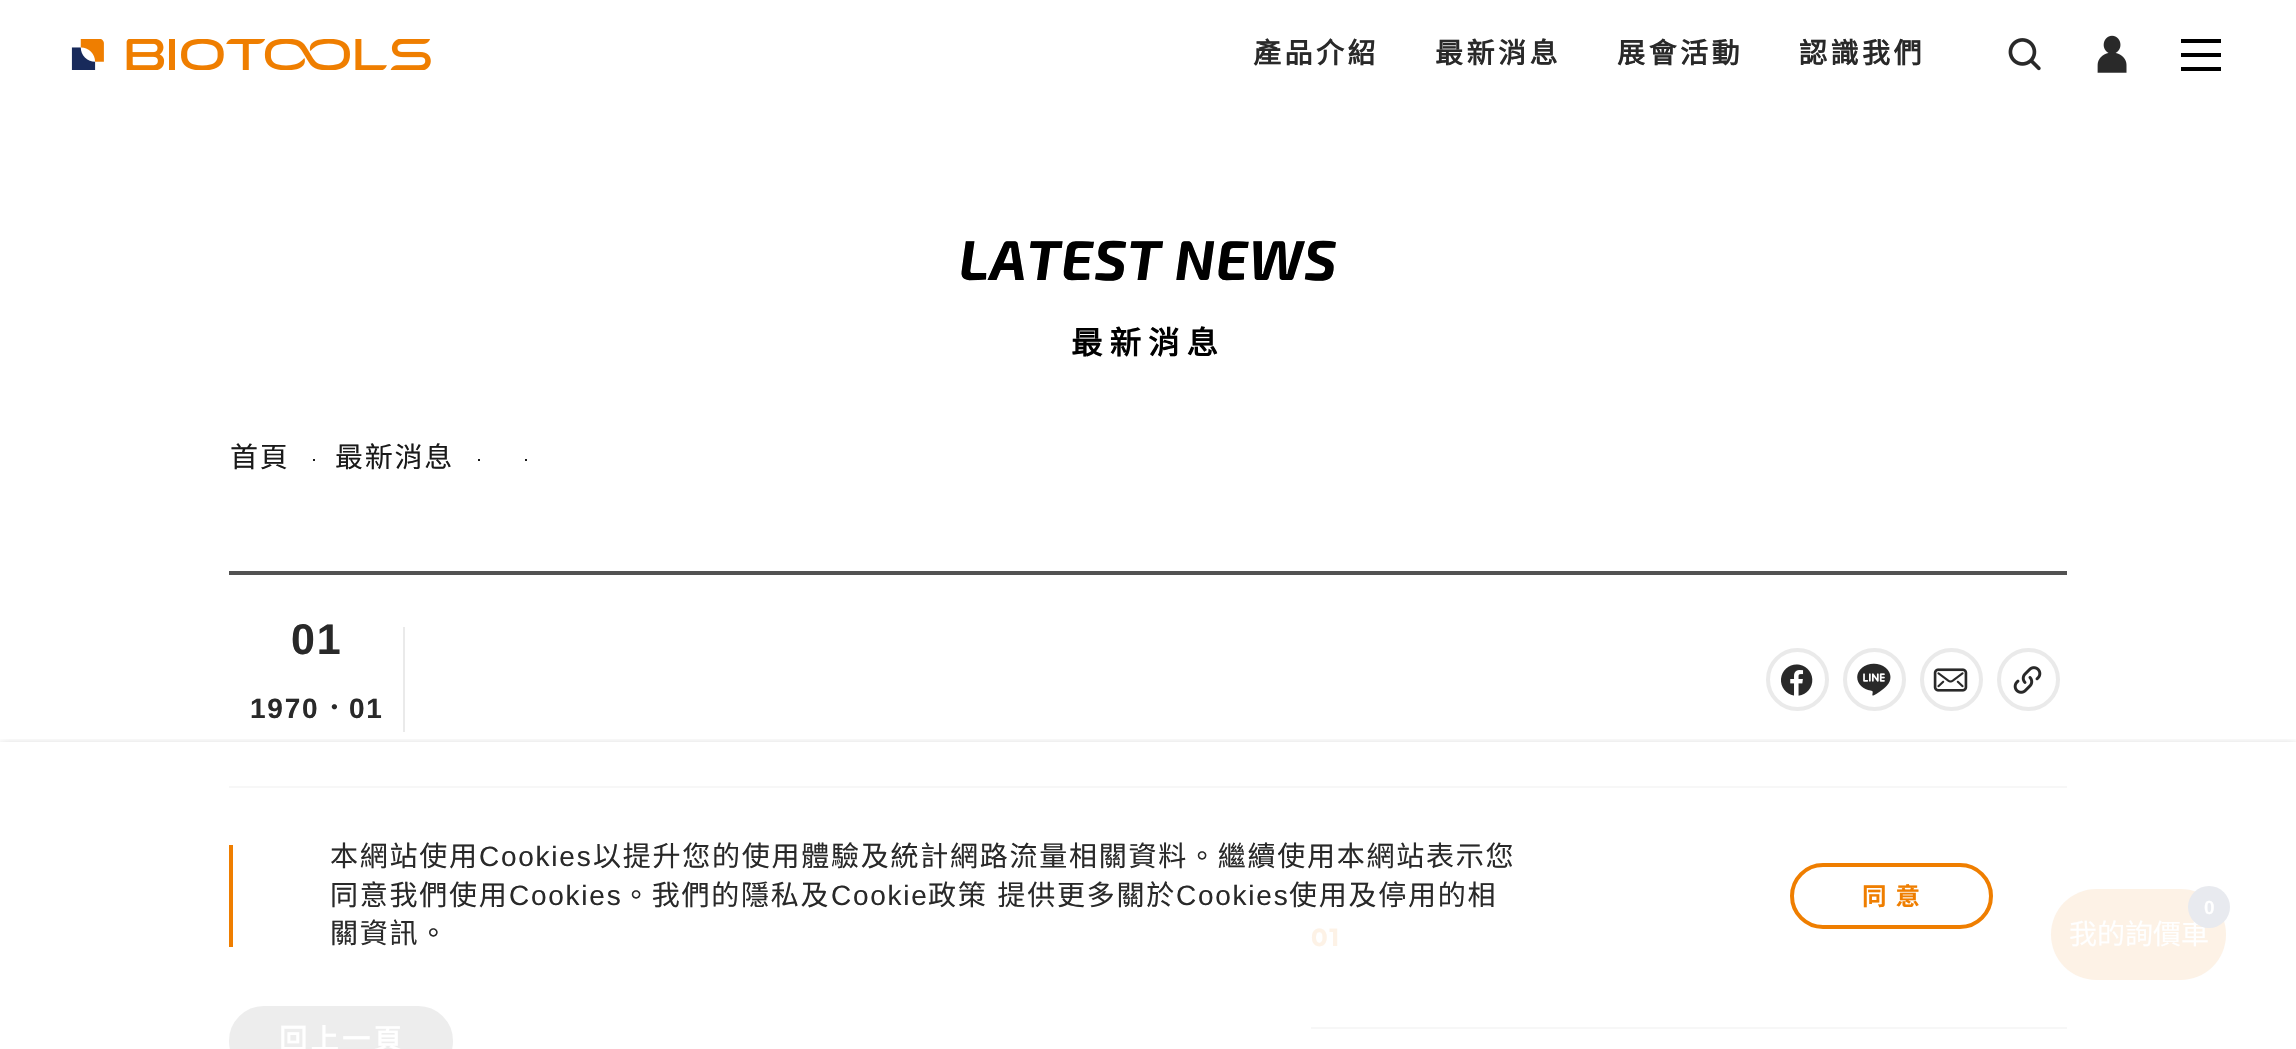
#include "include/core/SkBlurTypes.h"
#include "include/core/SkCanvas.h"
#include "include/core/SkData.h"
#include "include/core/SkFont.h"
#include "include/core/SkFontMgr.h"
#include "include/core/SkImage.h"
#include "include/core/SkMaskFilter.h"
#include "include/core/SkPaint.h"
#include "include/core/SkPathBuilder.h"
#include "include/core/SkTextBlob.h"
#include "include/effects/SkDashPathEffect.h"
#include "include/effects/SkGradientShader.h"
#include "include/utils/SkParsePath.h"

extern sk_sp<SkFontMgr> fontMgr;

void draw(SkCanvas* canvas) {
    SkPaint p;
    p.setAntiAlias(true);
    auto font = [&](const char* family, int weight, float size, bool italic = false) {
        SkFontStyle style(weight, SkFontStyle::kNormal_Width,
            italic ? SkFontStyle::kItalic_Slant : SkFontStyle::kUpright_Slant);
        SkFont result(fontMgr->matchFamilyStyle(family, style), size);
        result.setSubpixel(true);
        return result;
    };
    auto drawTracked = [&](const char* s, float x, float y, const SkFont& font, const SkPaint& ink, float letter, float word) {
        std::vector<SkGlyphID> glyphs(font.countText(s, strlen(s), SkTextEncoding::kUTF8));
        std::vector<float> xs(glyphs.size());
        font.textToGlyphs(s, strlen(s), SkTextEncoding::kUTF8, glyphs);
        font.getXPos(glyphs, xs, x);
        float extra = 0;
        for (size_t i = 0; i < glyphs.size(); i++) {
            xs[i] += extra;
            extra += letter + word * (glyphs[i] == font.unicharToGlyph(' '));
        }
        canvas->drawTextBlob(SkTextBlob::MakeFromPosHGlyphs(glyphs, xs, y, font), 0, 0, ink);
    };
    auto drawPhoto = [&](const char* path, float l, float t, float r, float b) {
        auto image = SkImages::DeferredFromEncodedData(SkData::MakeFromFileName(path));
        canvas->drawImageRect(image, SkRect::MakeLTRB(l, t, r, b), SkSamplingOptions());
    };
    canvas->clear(0xFFFFFFFF);
    drawPhoto("media/1.png", 71, 39, 431, 70);
    auto font1 = font("Noto Sans CJK TC", 700, 28);
    p.setColor(0xFF292929);
    {
        const struct { const char* s; float x, y; } items[] = {
            {"產品介紹", 1253, 63},
            {"最新消息", 1435, 63},
            {"展會活動", 1617, 63},
            {"認識我們", 1799, 63},
        };
        for (auto [s, x, y] : items) {
            drawTracked(s, x, y, font1, p, 3.5f, 0);
        }
    }
    drawPhoto("media/2.png", 2008, 38, 2041, 71);
    drawPhoto("media/3.png", 2097, 35, 2127, 73);
    {
        const struct { float l, t, r, b; SkColor color; } items[] = {
            {2181, 39, 2221, 43, 0xFF000000},
            {2181, 53, 2221, 57, 0xFF000000},
            {2181, 67, 2221, 71, 0xFF000000},
        };
        for (auto [l, t, r, b, color] : items) {
            p.setColor(color);
            canvas->drawRect(SkRect::MakeLTRB(l, t, r, b), p);
        }
    }
    auto font2 = font("Exo 2", 700, 56, true);
    drawTracked("LATEST NEWS", 959, 280, font2, p, 0.9f, 0);
    auto font3 = font("Noto Sans CJK TC", 700, 31.5f);
    drawTracked("最新消息", 1071, 354, font3, p, 7, 0);
    auto font4 = font("Noto Sans CJK TC", 400, 28);
    p.setColor(0xFF1A1A1A);
    drawTracked("首頁", 230, 467, font4, p, 1.75f, 0);
    canvas->drawRect(SkRect::MakeLTRB(313, 459, 315, 461), p);
    drawTracked("最新消息", 335, 467, font4, p, 1.75f, 0);
    {
        const struct { float l, t, r, b; SkColor color; } items[] = {
            {478, 459, 480, 461, 0xFF1A1A1A},
            {525, 459, 527, 461, 0xFF1A1A1A},
            {229, 571, 2067, 575, 0xFF525252},
            {229, 786, 2067, 788, 0xFFF7F7F7},
        };
        for (auto [l, t, r, b, color] : items) {
            p.setColor(color);
            canvas->drawRect(SkRect::MakeLTRB(l, t, r, b), p);
        }
    }
    auto font5 = font("Liberation Sans", 700, 43);
    p.setColor(0xFF292929);
    drawTracked("01", 291, 654, font5, p, 1.75f, 0);
    p.setColor(0xFFEAEAEA);
    canvas->drawRect(SkRect::MakeLTRB(403, 627, 405, 732), p);
    auto font6 = font("Liberation Sans", 700, 28);
    p.setColor(0xFF292929);
    drawTracked("1970", 250, 718, font6, p, 1.75f, 0);
    drawTracked("．", 320, 718, font1, p, 1.75f, 0);
    drawTracked("01", 349, 718, font6, p, 1.75f, 0);
    p.setStyle(SkPaint::kStroke_Style);
    p.setStrokeWidth(4);
    p.setColor(0xFFEAEAEA);
    canvas->drawCircle(1797.5f, 679.5f, 29.5f, p);
    drawPhoto("media/4.png", 1781, 664, 1813, 696);
    canvas->drawCircle(1874.5f, 679.5f, 29.5f, p);
    drawPhoto("media/5.png", 1857, 663, 1891, 696);
    canvas->drawCircle(1951.5f, 679.5f, 29.5f, p);
    drawPhoto("media/6.png", 1933, 668, 1968, 692);
    canvas->drawCircle(2028.5f, 679.5f, 29.5f, p);
    drawPhoto("media/7.png", 2013, 666, 2042, 694);
    auto font7 = font("Montserrat", 700, 24.5f);
    p.setStyle(SkPaint::kFill_Style);
    p.setColor(0xFFFDF2E6);
    drawTracked("01", 1311, 946, font7, p, 1.75f, 0);
    p.setColor(0xFFF7F7F7);
    canvas->drawRect(SkRect::MakeLTRB(1311, 1027, 2067, 1029), p);
    p.setColor(0xFFEDEDED);
    canvas->drawRoundRect(SkRect::MakeLTRB(231, 1008, 451, 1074), 33, 33, p);
    p.setStyle(SkPaint::kStroke_Style);
    canvas->drawRoundRect(SkRect::MakeLTRB(231, 1008, 451, 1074), 33, 33, p);
    p.setStyle(SkPaint::kFill_Style);
    p.setColor(0xFFFFFFFF);
    drawTracked("回上一頁", 279, 1049, font1, p, 3.5f, 0);
    p.setColor(0xFFFDF2E6);
    canvas->drawRoundRect(SkRect::MakeLTRB(2051, 889, 2226, 980), 45.5f, 45.5f, p);
    p.setColor(0xFFFFFFFF);
    canvas->drawString("我的詢價車", 2069, 944, font4, p);
    p.setColor(0xFFE8EAEF);
    canvas->drawCircle(2209, 907, 21, p);
    canvas->save();
    canvas->clipRect(SkRect::MakeLTRB(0, 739, 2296, 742));
    p.setColor(0x66000000);
    p.setMaskFilter(SkMaskFilter::MakeBlur(kNormal_SkBlurStyle, 5));
    canvas->drawRect(SkRect::MakeLTRB(0, 747, 2296, 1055), p);
    p.setMaskFilter(nullptr);
    canvas->restore();
    p.setColor(0xFFEF7E00);
    canvas->drawRect(SkRect::MakeLTRB(229, 845, 233, 947), p);
    p.setColor(0xFF292929);
    drawTracked("本網站使用", 330, 866, font4, p, 1.75f, 0);
    auto font8 = font("Liberation Sans", 400, 28);
    drawTracked("Cookies", 479, 866, font8, p, 1.75f, 0);
    drawTracked("以提升您的使用體驗及統計網路流量相關資料。繼續使用本網站表示您", 593, 866, font4, p, 1.75f, 0);
    drawTracked("同意我們使用", 330, 905, font4, p, 1.75f, 0);
    drawTracked("Cookies", 509, 905, font8, p, 1.75f, 0);
    drawTracked("。我們的隱私及", 622, 905, font4, p, 1.75f, 0);
    drawTracked("Cookie", 831, 905, font8, p, 1.75f, 0);
    drawTracked("政策 提供更多關於", 928, 905, font4, p, 1.75f, 2);
    drawTracked("Cookies", 1176, 905, font8, p, 1.75f, 0);
    drawTracked("使用及停用的相", 1289, 905, font4, p, 1.75f, 0);
    drawTracked("關資訊。", 330, 943, font4, p, 1.75f, 0);
    p.setStyle(SkPaint::kStroke_Style);
    p.setColor(0xFFEF7E00);
    canvas->drawRoundRect(SkRect::MakeLTRB(1792, 865, 1991, 927), 31, 31, p);
    auto font9 = font("Noto Sans TC", 700, 24.5f);
    p.setStyle(SkPaint::kFill_Style);
    drawTracked("同 意", 1862, 905, font9, p, 1.75f, 0);
    auto font10 = font("Liberation Sans", 700, 19);
    p.setColor(0xFFFFFFFF);
    canvas->drawString("0", 2204, 914, font10, p);
}
